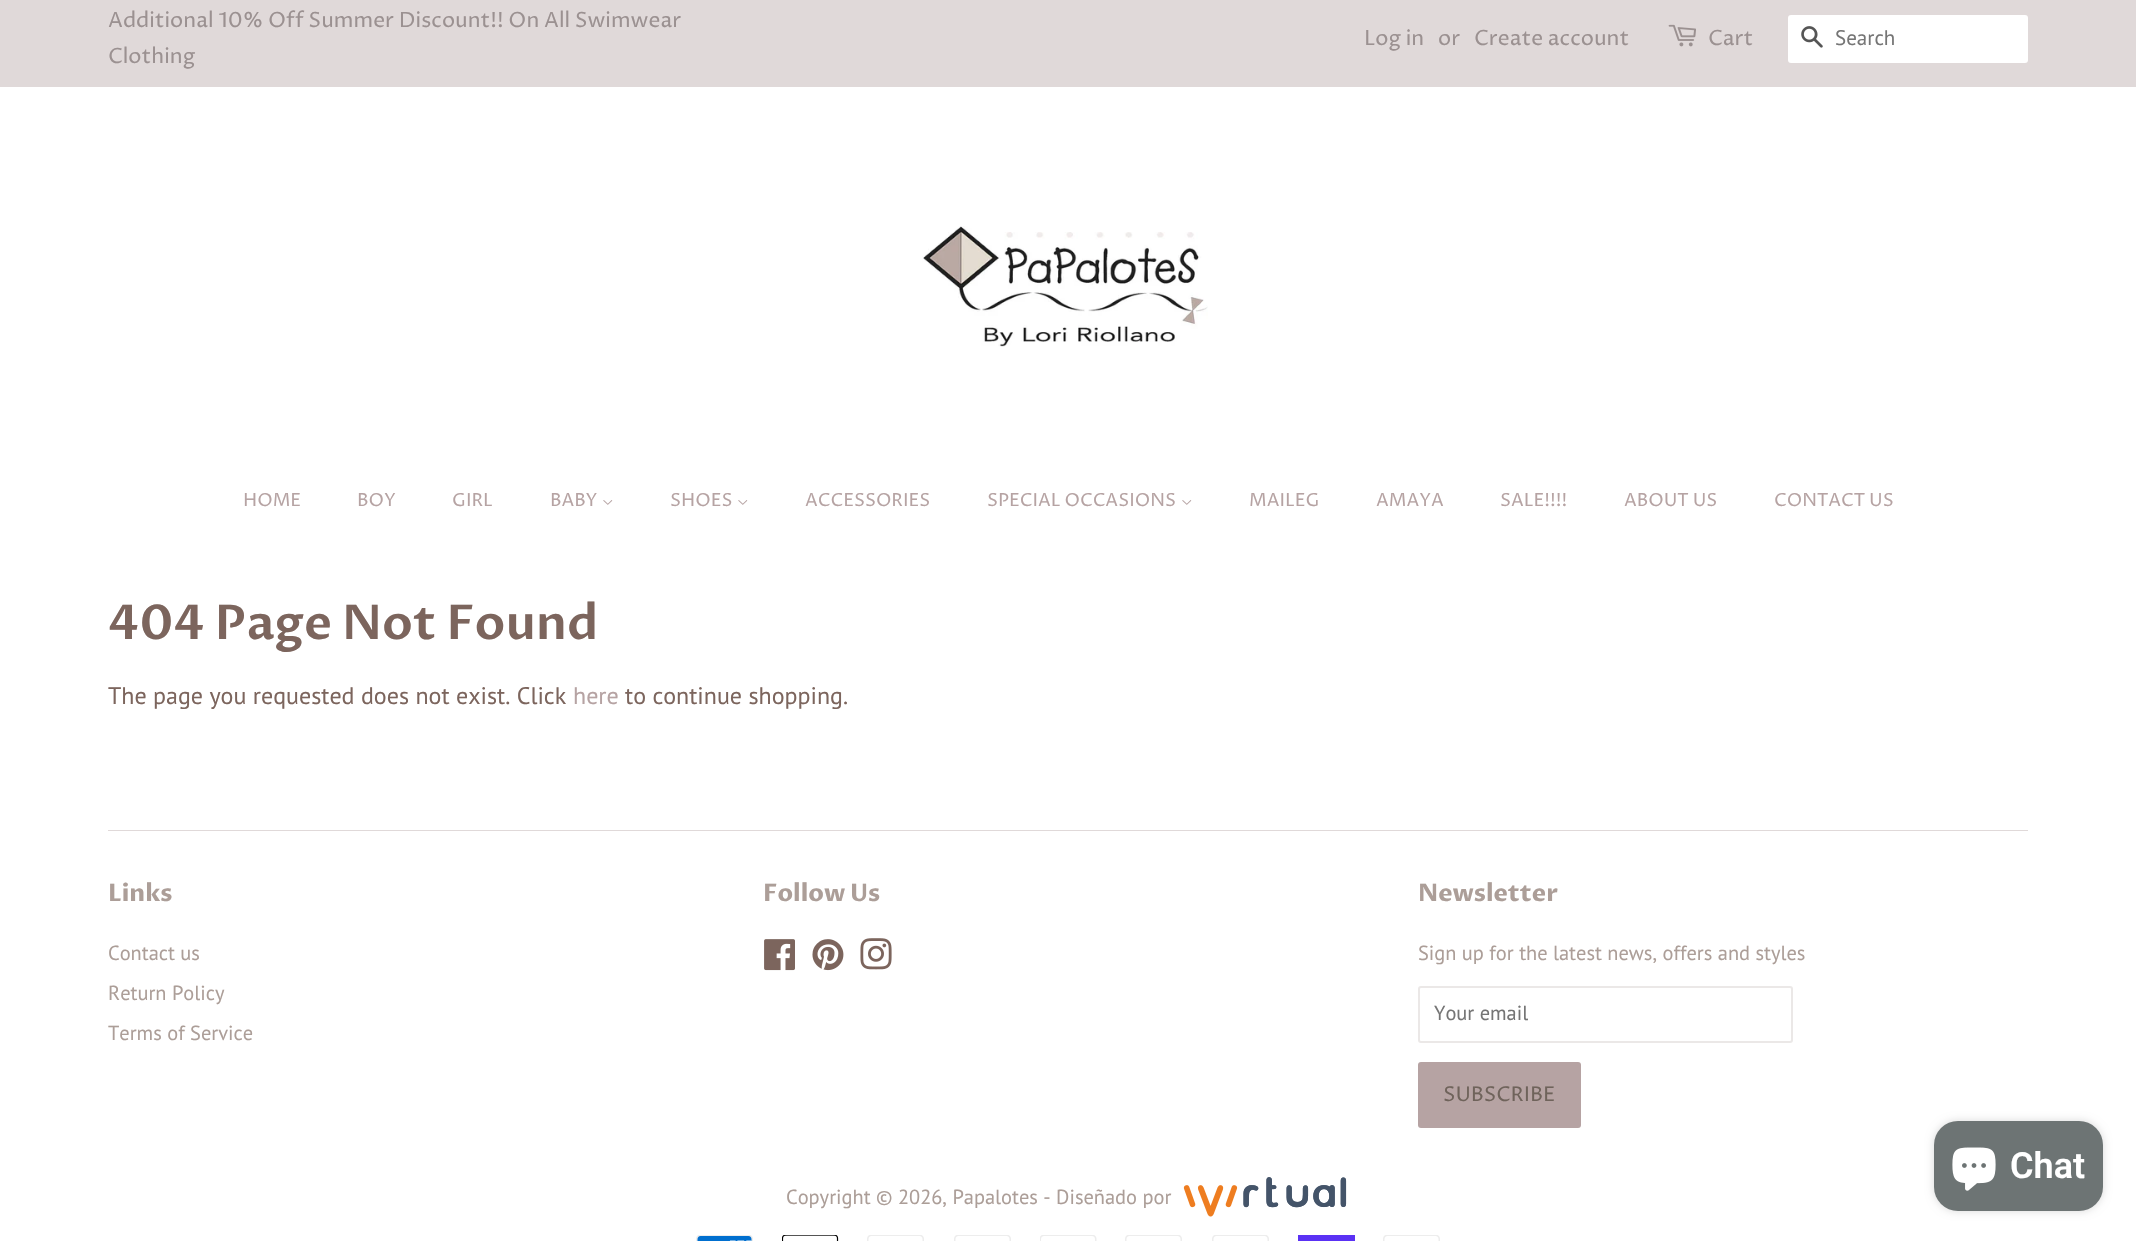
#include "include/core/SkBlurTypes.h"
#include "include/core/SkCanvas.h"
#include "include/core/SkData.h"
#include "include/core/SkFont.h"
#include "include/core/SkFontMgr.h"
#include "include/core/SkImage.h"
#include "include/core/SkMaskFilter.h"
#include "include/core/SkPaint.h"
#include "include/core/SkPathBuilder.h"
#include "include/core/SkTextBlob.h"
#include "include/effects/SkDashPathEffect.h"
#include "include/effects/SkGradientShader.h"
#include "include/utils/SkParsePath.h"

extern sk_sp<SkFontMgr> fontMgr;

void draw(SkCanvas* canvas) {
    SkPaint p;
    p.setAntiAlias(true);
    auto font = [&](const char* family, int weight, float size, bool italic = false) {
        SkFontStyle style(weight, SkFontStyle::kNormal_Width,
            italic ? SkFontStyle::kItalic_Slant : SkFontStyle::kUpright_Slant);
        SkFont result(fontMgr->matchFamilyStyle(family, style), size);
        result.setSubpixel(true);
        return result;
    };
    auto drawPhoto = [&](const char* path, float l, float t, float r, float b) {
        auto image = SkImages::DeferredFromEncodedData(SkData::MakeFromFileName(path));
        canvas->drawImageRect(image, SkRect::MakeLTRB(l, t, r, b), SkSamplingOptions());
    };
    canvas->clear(0xFFFFFFFF);
    p.setColor(0xFFE0D9D9);
    canvas->drawRect(SkRect::MakeLTRB(0, 0, 2136, 87), p);
    auto font1 = font("Proza Libre", 400, 21);
    p.setColor(0xFF9B9191);
    {
        const struct { const char* s; float x, y; } items[] = {
            {"Additional 10% Off Summer Discount!! On All Swimwear", 108, 27},
            {"Clothing", 108, 63},
            {"Log in", 1364, 45},
            {"or", 1438, 45},
            {"Create account", 1474, 45},
        };
        for (auto [s, x, y] : items) {
            canvas->drawString(s, x, y, font1, p);
        }
    }
    drawPhoto("media/1.png", 1668, 24, 1696, 47);
    canvas->drawString("Cart", 1708, 45, font1, p);
    p.setColor(0xFFFFFFFF);
    canvas->drawRoundRect(SkRect::MakeLTRB(1788, 15, 2028, 63), 3, 3, p);
    drawPhoto("media/2.png", 1801, 26, 1823, 48);
    auto font2 = font("PT Sans", 400, 21);
    p.setColor(0xFF757575);
    canvas->drawString("Search", 1835, 45, font2, p);
    drawPhoto("media/3.png", 922, 226, 1208, 347);
    auto font3 = font("Proza Libre", 400, 18);
    p.setColor(0xFFB6A3A3);
    {
        const struct { const char* s; float x, y; } items[] = {
            {"HOME", 243, 506},
            {"BOY", 357, 506},
            {"GIRL", 452, 506},
            {"BABY", 550, 506},
        };
        for (auto [s, x, y] : items) {
            canvas->drawString(s, x, y, font3, p);
        }
    }
    drawPhoto("media/4.png", 603, 500, 613, 505);
    canvas->drawString("SHOES", 670, 506, font3, p);
    drawPhoto("media/4.png", 738, 500, 748, 505);
    canvas->drawString("ACCESSORIES", 805, 506, font3, p);
    canvas->drawString("SPECIAL OCCASIONS", 987, 506, font3, p);
    drawPhoto("media/4.png", 1182, 500, 1192, 505);
    {
        const struct { const char* s; float x, y; } items[] = {
            {"MAILEG", 1249, 506},
            {"AMAYA", 1376, 506},
            {"SALE!!!!", 1500, 506},
            {"ABOUT US", 1624, 506},
            {"CONTACT US", 1774, 506},
        };
        for (auto [s, x, y] : items) {
            canvas->drawString(s, x, y, font3, p);
        }
    }
    auto font4 = font("Proza Libre", 600, 48);
    p.setColor(0xFF7C655D);
    canvas->drawString("404 Page Not Found", 108, 639, font4, p);
    auto font5 = font("PT Sans", 400, 24);
    canvas->drawString("The page you requested does not exist. Click", 108, 704, font5, p);
    p.setColor(0xFFB6A3A3);
    canvas->drawString("here", 573, 704, font5, p);
    p.setColor(0xFF7C655D);
    canvas->drawString("to continue shopping.", 625, 704, font5, p);
    p.setColor(0xFFE0D9D9);
    canvas->drawRect(SkRect::MakeLTRB(108, 830, 2028, 831), p);
    auto font6 = font("Proza Libre", 700, 24);
    p.setColor(0xFFAC9E98);
    canvas->drawString("Links", 108, 901, font6, p);
    auto font7 = font("PT Sans", 400, 20.4f);
    {
        const struct { const char* s; float x, y; } items[] = {
            {"Contact us", 108, 960},
            {"Return Policy", 108, 1000},
            {"Terms of Service", 108, 1040},
        };
        for (auto [s, x, y] : items) {
            canvas->drawString(s, x, y, font7, p);
        }
    }
    canvas->drawString("Follow Us", 763, 901, font6, p);
    drawPhoto("media/5.png", 764, 939, 795, 971);
    drawPhoto("media/6.png", 812, 939, 844, 971);
    drawPhoto("media/7.png", 860, 938, 892, 970);
    canvas->drawString("Newsletter", 1418, 901, font6, p);
    canvas->drawString("Sign up for the latest news, offers and styles", 1418, 960, font7, p);
    p.setStyle(SkPaint::kStroke_Style);
    p.setStrokeWidth(2);
    p.setColor(0xFFEBE8E7);
    canvas->drawRoundRect(SkRect::MakeLTRB(1419, 987, 1792, 1042), 2, 2, p);
    p.setStyle(SkPaint::kFill_Style);
    p.setColor(0xFF757575);
    canvas->drawString("Your email", 1434, 1020, font7, p);
    p.setColor(0xFFB6A3A3);
    canvas->drawRoundRect(SkRect::MakeLTRB(1418, 1062, 1581, 1128), 3, 3, p);
    auto font8 = font("Proza Libre", 400, 20.4f);
    p.setColor(0xFF6F635B);
    canvas->drawString("SUBSCRIBE", 1443, 1101, font8, p);
    p.setColor(0xFFAC9E98);
    canvas->drawString("Copyright © 2026, Papalotes - Diseñado por", 786, 1204, font7, p);
    drawPhoto("media/8.png", 1183, 1177, 1347, 1217);
    drawPhoto("media/9.png", 696, 1235, 753, 1241);
    drawPhoto("media/10.png", 782, 1235, 839, 1241);
    drawPhoto("media/11.png", 867, 1235, 924, 1241);
    drawPhoto("media/11.png", 954, 1235, 1011, 1241);
    drawPhoto("media/12.png", 1040, 1235, 1097, 1241);
    drawPhoto("media/11.png", 1125, 1235, 1182, 1241);
    drawPhoto("media/11.png", 1212, 1235, 1269, 1241);
    p.setColor(0xFF5A31F4);
    canvas->drawRect(SkRect::MakeLTRB(1298, 1235, 1355, 1241), p);
    drawPhoto("media/11.png", 1383, 1235, 1440, 1241);
    p.setColor(0x26000000);
    p.setMaskFilter(SkMaskFilter::MakeBlur(kNormal_SkBlurStyle, 4));
    canvas->drawRoundRect(SkRect::MakeLTRB(1934, 1121, 2103, 1211), 24, 24, p);
    p.setMaskFilter(nullptr);
    p.setColor(0xFF6D7474);
    canvas->drawRoundRect(SkRect::MakeLTRB(1934, 1121, 2103, 1211), 24, 24, p);
    drawPhoto("media/13.png", 1952, 1147, 1996, 1191);
    auto font9 = font("Roboto", 600, 36);
    p.setColor(0xFFFFFFFF);
    canvas->drawString("Chat", 2010, 1178, font9, p);
}
